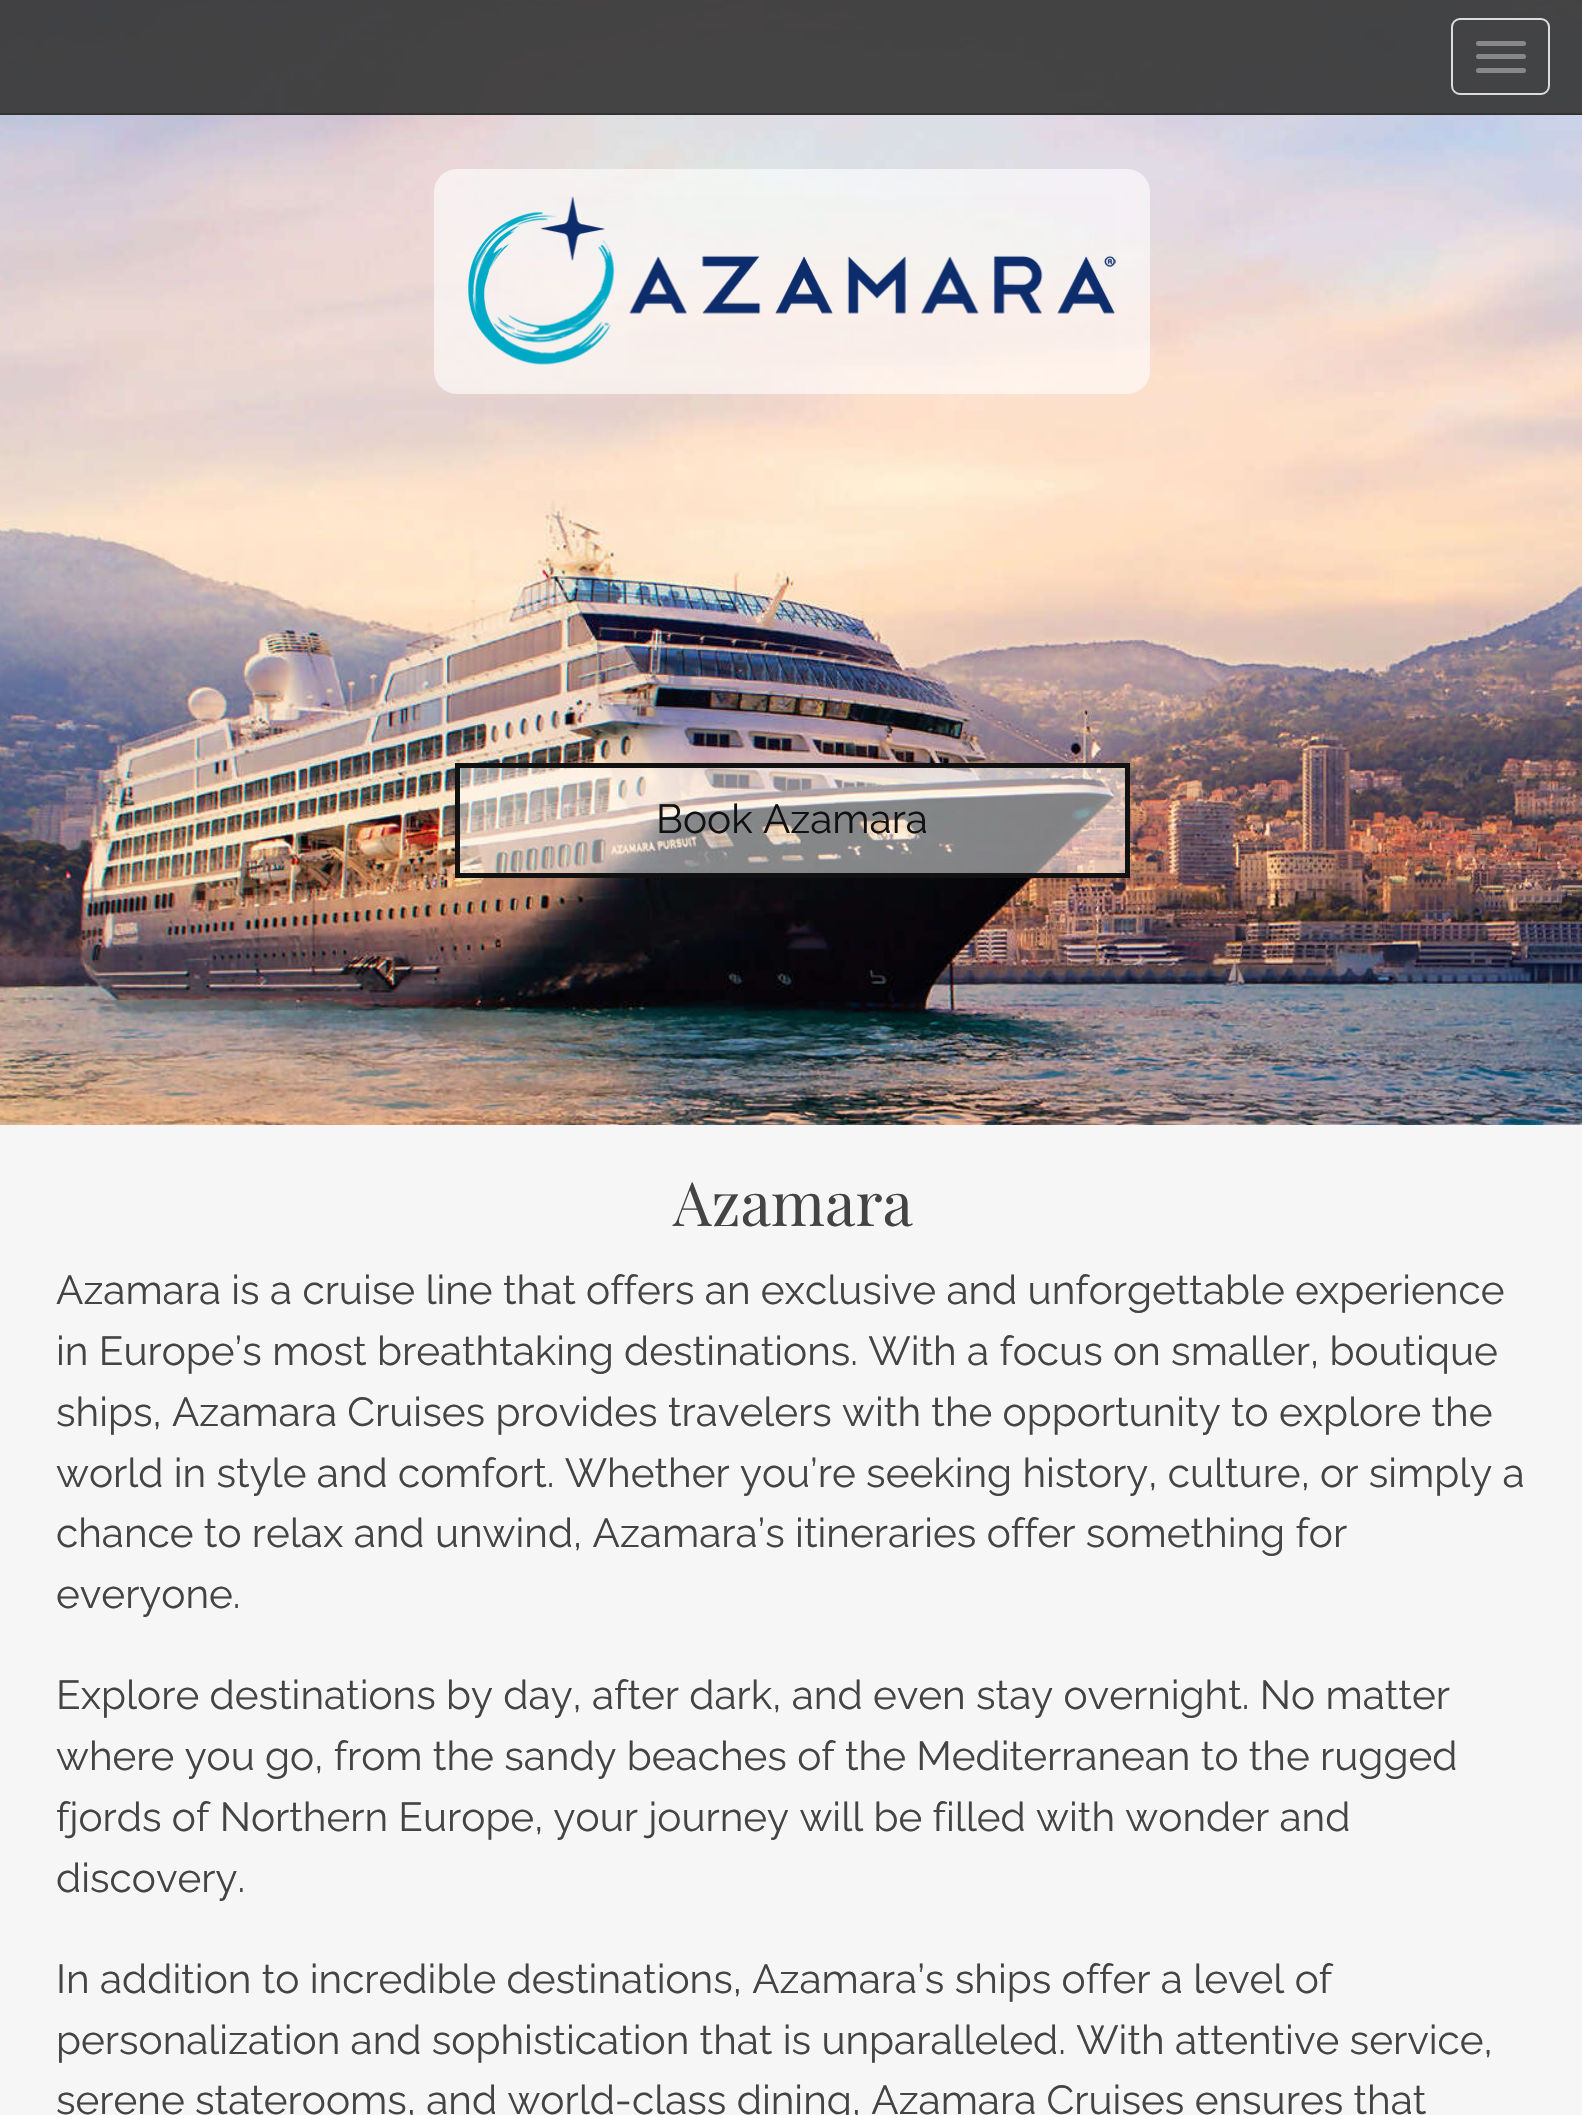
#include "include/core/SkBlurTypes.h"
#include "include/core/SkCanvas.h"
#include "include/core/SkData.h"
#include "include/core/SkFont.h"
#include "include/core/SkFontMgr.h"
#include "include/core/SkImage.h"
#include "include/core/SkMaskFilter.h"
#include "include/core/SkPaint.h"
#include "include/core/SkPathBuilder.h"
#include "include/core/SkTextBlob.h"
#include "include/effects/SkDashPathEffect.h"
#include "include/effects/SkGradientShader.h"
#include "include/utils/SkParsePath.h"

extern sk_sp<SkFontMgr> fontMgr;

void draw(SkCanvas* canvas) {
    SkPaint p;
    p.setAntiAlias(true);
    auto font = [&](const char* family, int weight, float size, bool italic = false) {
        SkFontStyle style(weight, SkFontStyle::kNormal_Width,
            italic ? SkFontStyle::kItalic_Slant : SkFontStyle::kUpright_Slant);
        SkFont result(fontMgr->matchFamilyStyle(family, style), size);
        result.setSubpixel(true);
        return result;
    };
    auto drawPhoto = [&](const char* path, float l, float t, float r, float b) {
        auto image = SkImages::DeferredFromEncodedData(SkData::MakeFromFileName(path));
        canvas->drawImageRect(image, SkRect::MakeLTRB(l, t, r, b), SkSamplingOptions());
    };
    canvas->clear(0xFFF6F6F6);
    drawPhoto("media/1.png", 0, 0, 1582, 1125);
    p.setColor(0xED383838);
    canvas->drawRect(SkRect::MakeLTRB(0, 0, 1582, 113), p);
    p.setColor(0xFF333333);
    canvas->drawRect(SkRect::MakeLTRB(0, 113, 1582, 115), p);
    p.setStyle(SkPaint::kStroke_Style);
    p.setStrokeWidth(2);
    p.setColor(0xFFDDDDDD);
    canvas->drawRoundRect(SkRect::MakeLTRB(1452, 19, 1549, 94), 8, 8, p);
    p.setStyle(SkPaint::kFill_Style);
    p.setColor(0xFF888888);
    canvas->drawRoundRect(SkRect::MakeLTRB(1476, 41, 1526, 46), 2.5f, 2.5f, p);
    canvas->drawRoundRect(SkRect::MakeLTRB(1476, 54, 1526, 59), 2.5f, 2.5f, p);
    canvas->drawRoundRect(SkRect::MakeLTRB(1476, 68, 1526, 73), 2.5f, 2.5f, p);
    p.setColor(0x99FFFFFF);
    canvas->drawRoundRect(SkRect::MakeLTRB(434, 169, 1150, 394), 23, 23, p);
    drawPhoto("media/2.png", 468, 196, 1116, 365);
    p.setColor(0x80FFFFFF);
    canvas->drawRect(SkRect::MakeLTRB(457.5f, 765.5f, 1127.5f, 875.5f), p);
    p.setStyle(SkPaint::kStroke_Style);
    p.setStrokeWidth(5);
    p.setColor(0xFF111111);
    canvas->drawRect(SkRect::MakeLTRB(457.5f, 765.5f, 1127.5f, 875.5f), p);
    auto font1 = font("Raleway", 400, 40.5f);
    p.setStyle(SkPaint::kFill_Style);
    canvas->drawString("Book Azamara", 656, 833, font1, p);
    auto font2 = font("Playfair Display", 400, 61);
    p.setColor(0xFF444444);
    canvas->drawString("Azamara", 673, 1226, font2, p);
    {
        const struct { const char* s; float x, y; } items[] = {
            {"Azamara is a cruise line that offers an exclusive and unforgettable experience", 56, 1304},
            {"in Europe’s most breathtaking destinations. With a focus on smaller, boutique", 56, 1365},
            {"ships, Azamara Cruises provides travelers with the opportunity to explore the", 56, 1426},
            {"world in style and comfort. Whether you’re seeking history, culture, or simply a", 56, 1487},
            {"chance to relax and unwind, Azamara’s itineraries offer something for", 56, 1547},
            {"everyone.", 56, 1608},
            {"Explore destinations by day, after dark, and even stay overnight. No matter", 56, 1709},
            {"where you go, from the sandy beaches of the Mediterranean to the rugged", 56, 1770},
            {"fjords of Northern Europe, your journey will be filled with wonder and", 56, 1831},
            {"discovery.", 56, 1892},
            {"In addition to incredible destinations, Azamara’s ships offer a level of", 56, 1993},
            {"personalization and sophistication that is unparalleled. With attentive service,", 56, 2054},
            {"serene staterooms, and world-class dining, Azamara Cruises ensures that", 56, 2114},
        };
        for (auto [s, x, y] : items) {
            canvas->drawString(s, x, y, font1, p);
        }
    }
}
